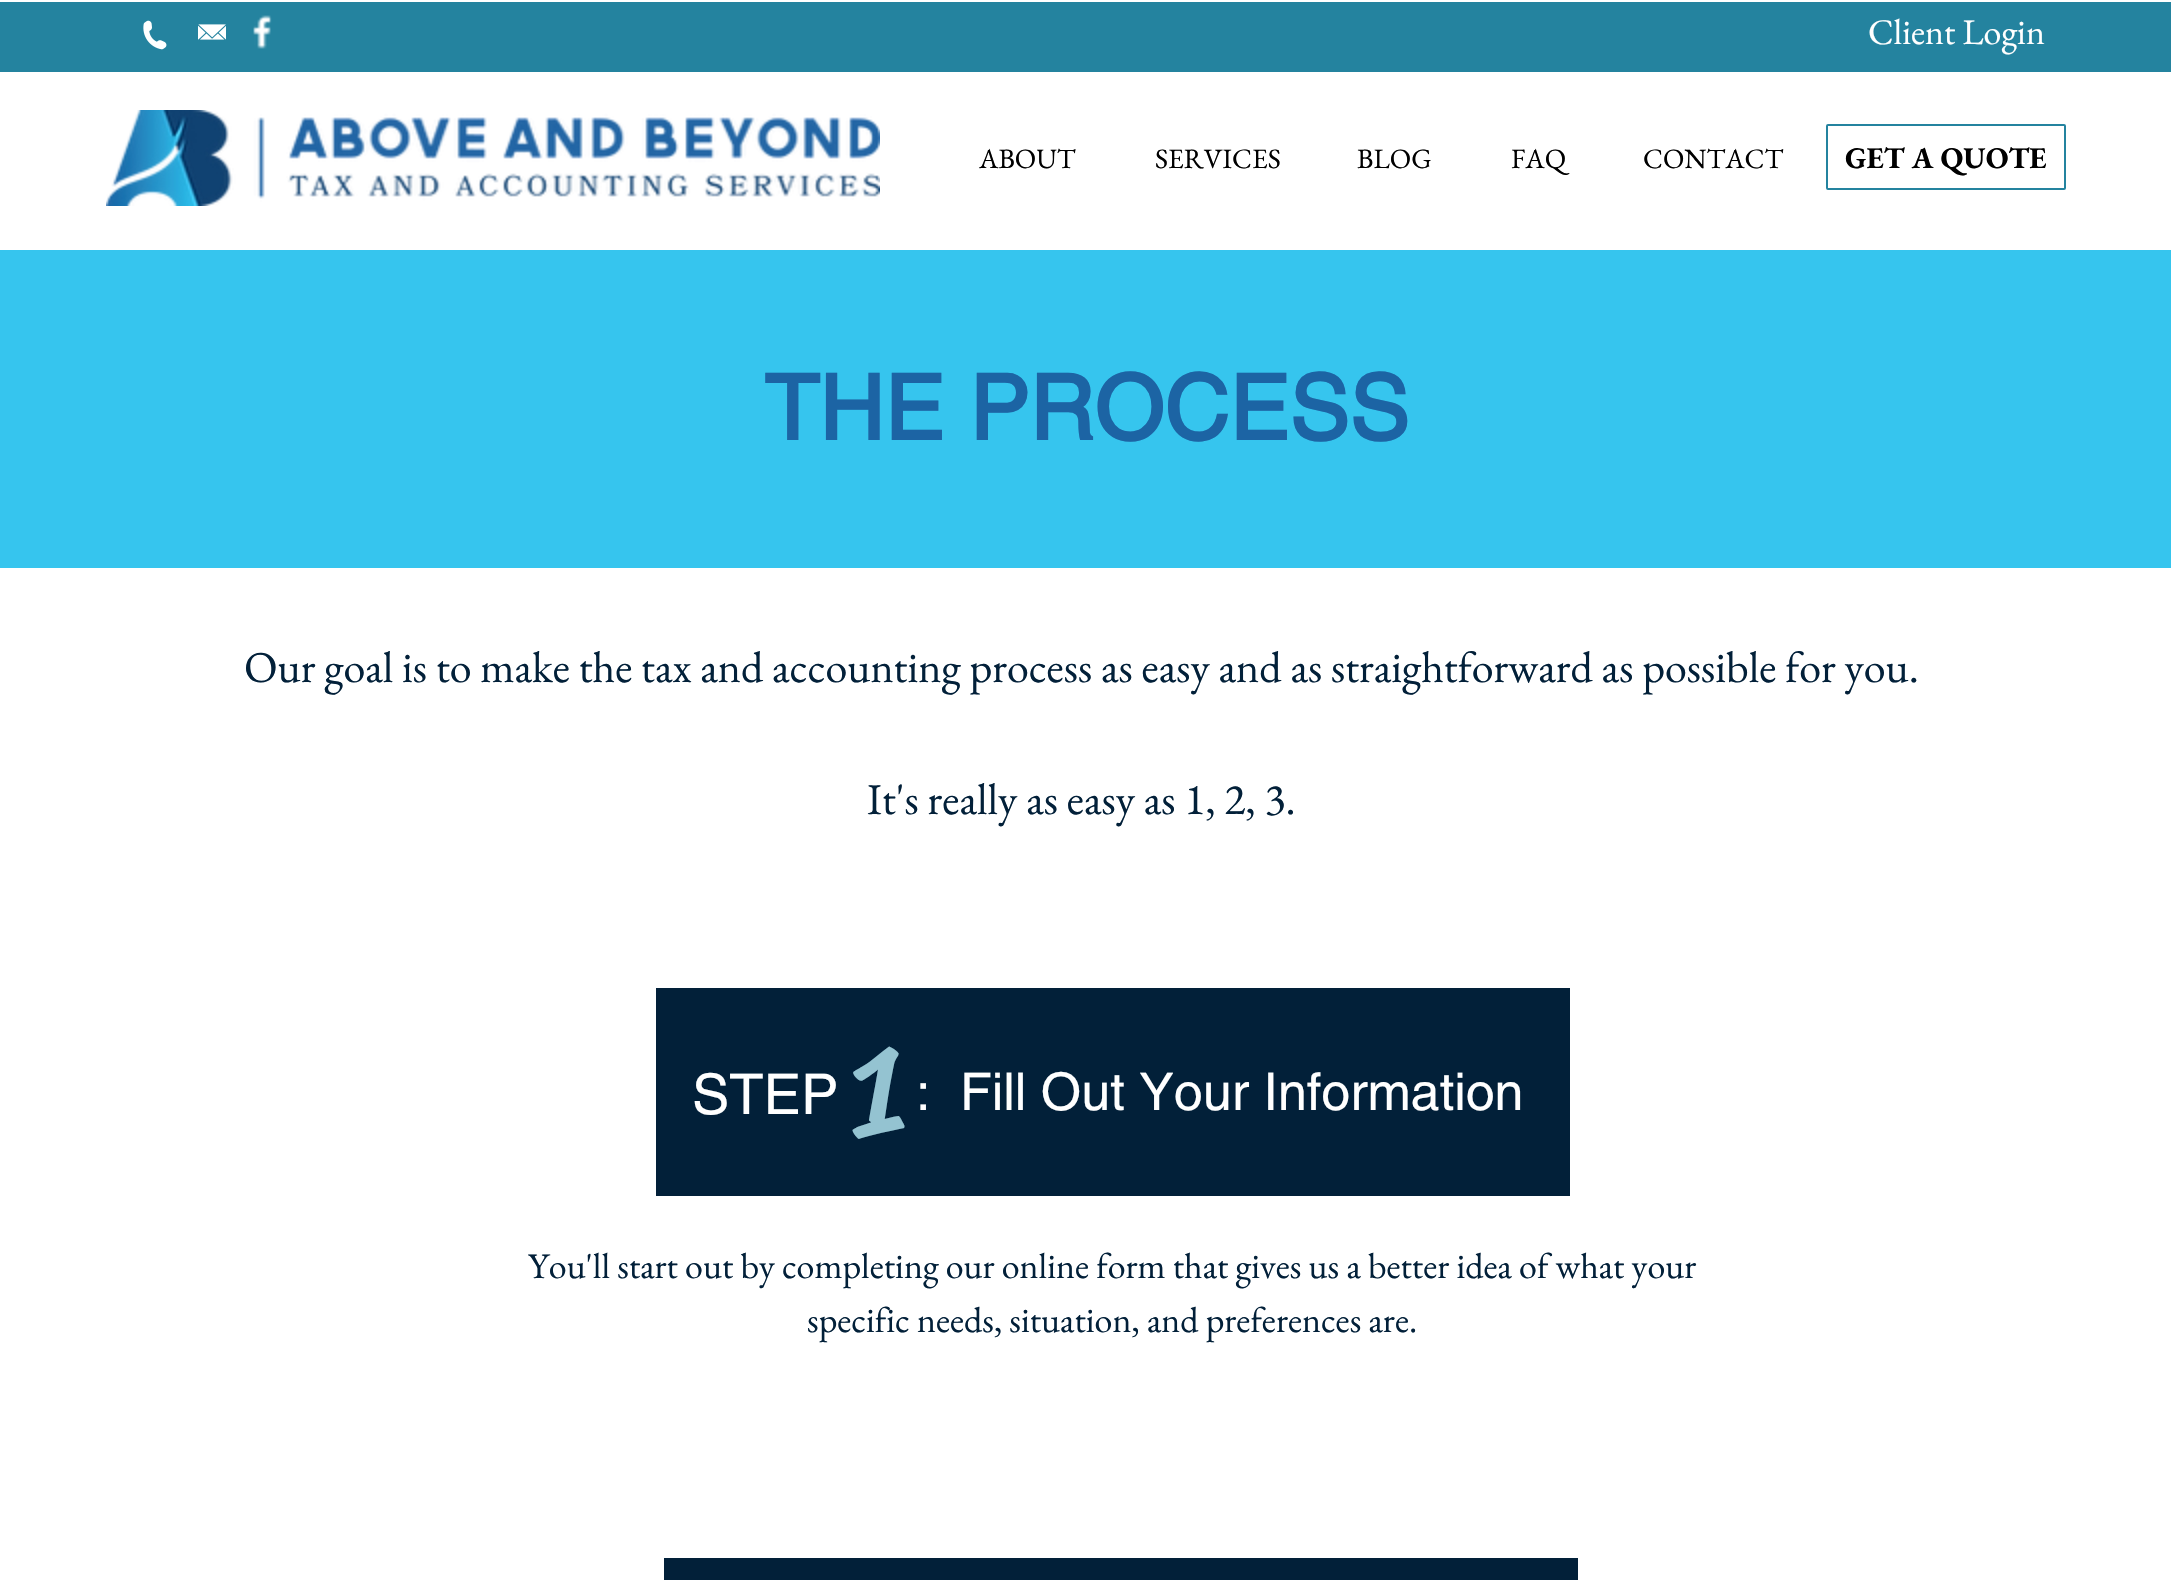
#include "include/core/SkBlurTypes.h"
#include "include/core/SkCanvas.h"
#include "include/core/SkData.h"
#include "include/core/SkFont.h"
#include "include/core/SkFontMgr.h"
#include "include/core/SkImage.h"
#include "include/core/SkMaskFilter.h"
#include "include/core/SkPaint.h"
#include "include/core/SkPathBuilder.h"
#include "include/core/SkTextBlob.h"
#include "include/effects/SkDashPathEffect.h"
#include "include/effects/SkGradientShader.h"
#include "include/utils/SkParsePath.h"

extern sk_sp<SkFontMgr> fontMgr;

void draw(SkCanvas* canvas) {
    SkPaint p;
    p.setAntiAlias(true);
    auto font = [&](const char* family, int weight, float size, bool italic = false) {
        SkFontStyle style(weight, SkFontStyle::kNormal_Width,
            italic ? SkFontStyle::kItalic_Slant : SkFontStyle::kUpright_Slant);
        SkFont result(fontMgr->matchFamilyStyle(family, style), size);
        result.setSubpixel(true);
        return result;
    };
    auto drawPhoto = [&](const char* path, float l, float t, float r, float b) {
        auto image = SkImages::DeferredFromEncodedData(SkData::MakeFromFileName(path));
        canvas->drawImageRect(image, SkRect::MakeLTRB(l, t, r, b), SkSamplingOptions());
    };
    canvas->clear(0xFFFFFFFF);
    p.setColor(0xFF24839F);
    canvas->drawRect(SkRect::MakeLTRB(0, 2, 2171, 72), p);
    drawPhoto("media/1.png", 143, 20, 167, 50);
    drawPhoto("media/2.png", 198, 24, 226, 40);
    drawPhoto("media/3.png", 253, 15, 272, 49);
    auto font1 = font("EB Garamond", 400, 36);
    p.setColor(0xFFFFFFFF);
    canvas->drawString("Client Login", 1868, 44, font1, p);
    drawPhoto("media/4.png", 106, 110, 880, 206);
    auto font2 = font("EB Garamond", 400, 28);
    p.setColor(0xFF000000);
    {
        const struct { const char* s; float x, y; } items[] = {
            {"ABOUT", 979, 168},
            {"SERVICES", 1155, 168},
            {"BLOG", 1357, 168},
            {"FAQ", 1511, 168},
            {"CONTACT", 1643, 168},
        };
        for (auto [s, x, y] : items) {
            canvas->drawString(s, x, y, font2, p);
        }
    }
    p.setStyle(SkPaint::kStroke_Style);
    p.setStrokeWidth(2);
    p.setColor(0xFF24839F);
    canvas->drawRoundRect(SkRect::MakeLTRB(1827, 125, 2065, 189), 1, 1, p);
    auto font3 = font("EB Garamond", 700, 30);
    p.setStyle(SkPaint::kFill_Style);
    p.setColor(0xFF000000);
    canvas->drawString("GET A QUOTE", 1845, 168, font3, p);
    p.setColor(0xFF36C5EE);
    canvas->drawRect(SkRect::MakeLTRB(0, 250, 2171, 568), p);
    auto font4 = font("helvetica", 700, 90);
    p.setColor(0xFF1C64A4);
    canvas->drawString("THE PROCESS", 764, 440, font4, p);
    auto font5 = font("EB Garamond", 400, 44);
    p.setColor(0xFF022039);
    canvas->drawString("Our goal is to make the tax and accounting process as easy and as straightforward as possible for you.", 244, 682, font5, p);
    canvas->drawString("It's really as easy as 1, 2, 3.", 867, 814, font5, p);
    canvas->drawRect(SkRect::MakeLTRB(656, 988, 1570, 1196), p);
    auto font6 = font("helvetica", 400, 56);
    p.setColor(0xFFFFFFFF);
    canvas->drawString("STEP", 692, 1114, font6, p);
    auto font7 = font("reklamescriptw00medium", 500, 120);
    p.setColor(0xFF94C3D1);
    canvas->drawString("1", 854, 1132, font7, p);
    auto font8 = font("helvetica", 400, 52);
    p.setColor(0xFFFFFFFF);
    canvas->drawString(":", 916, 1110, font8, p);
    canvas->drawString("Fill Out Your Information", 960, 1110, font8, p);
    p.setColor(0xFF022039);
    canvas->drawString("You'll start out by completing our online form that gives us a better idea of what your", 528, 1278, font1, p);
    canvas->drawString("specific needs, situation, and preferences are.", 807, 1332, font1, p);
    canvas->drawRect(SkRect::MakeLTRB(664, 1558, 1578, 1580), p);
}
